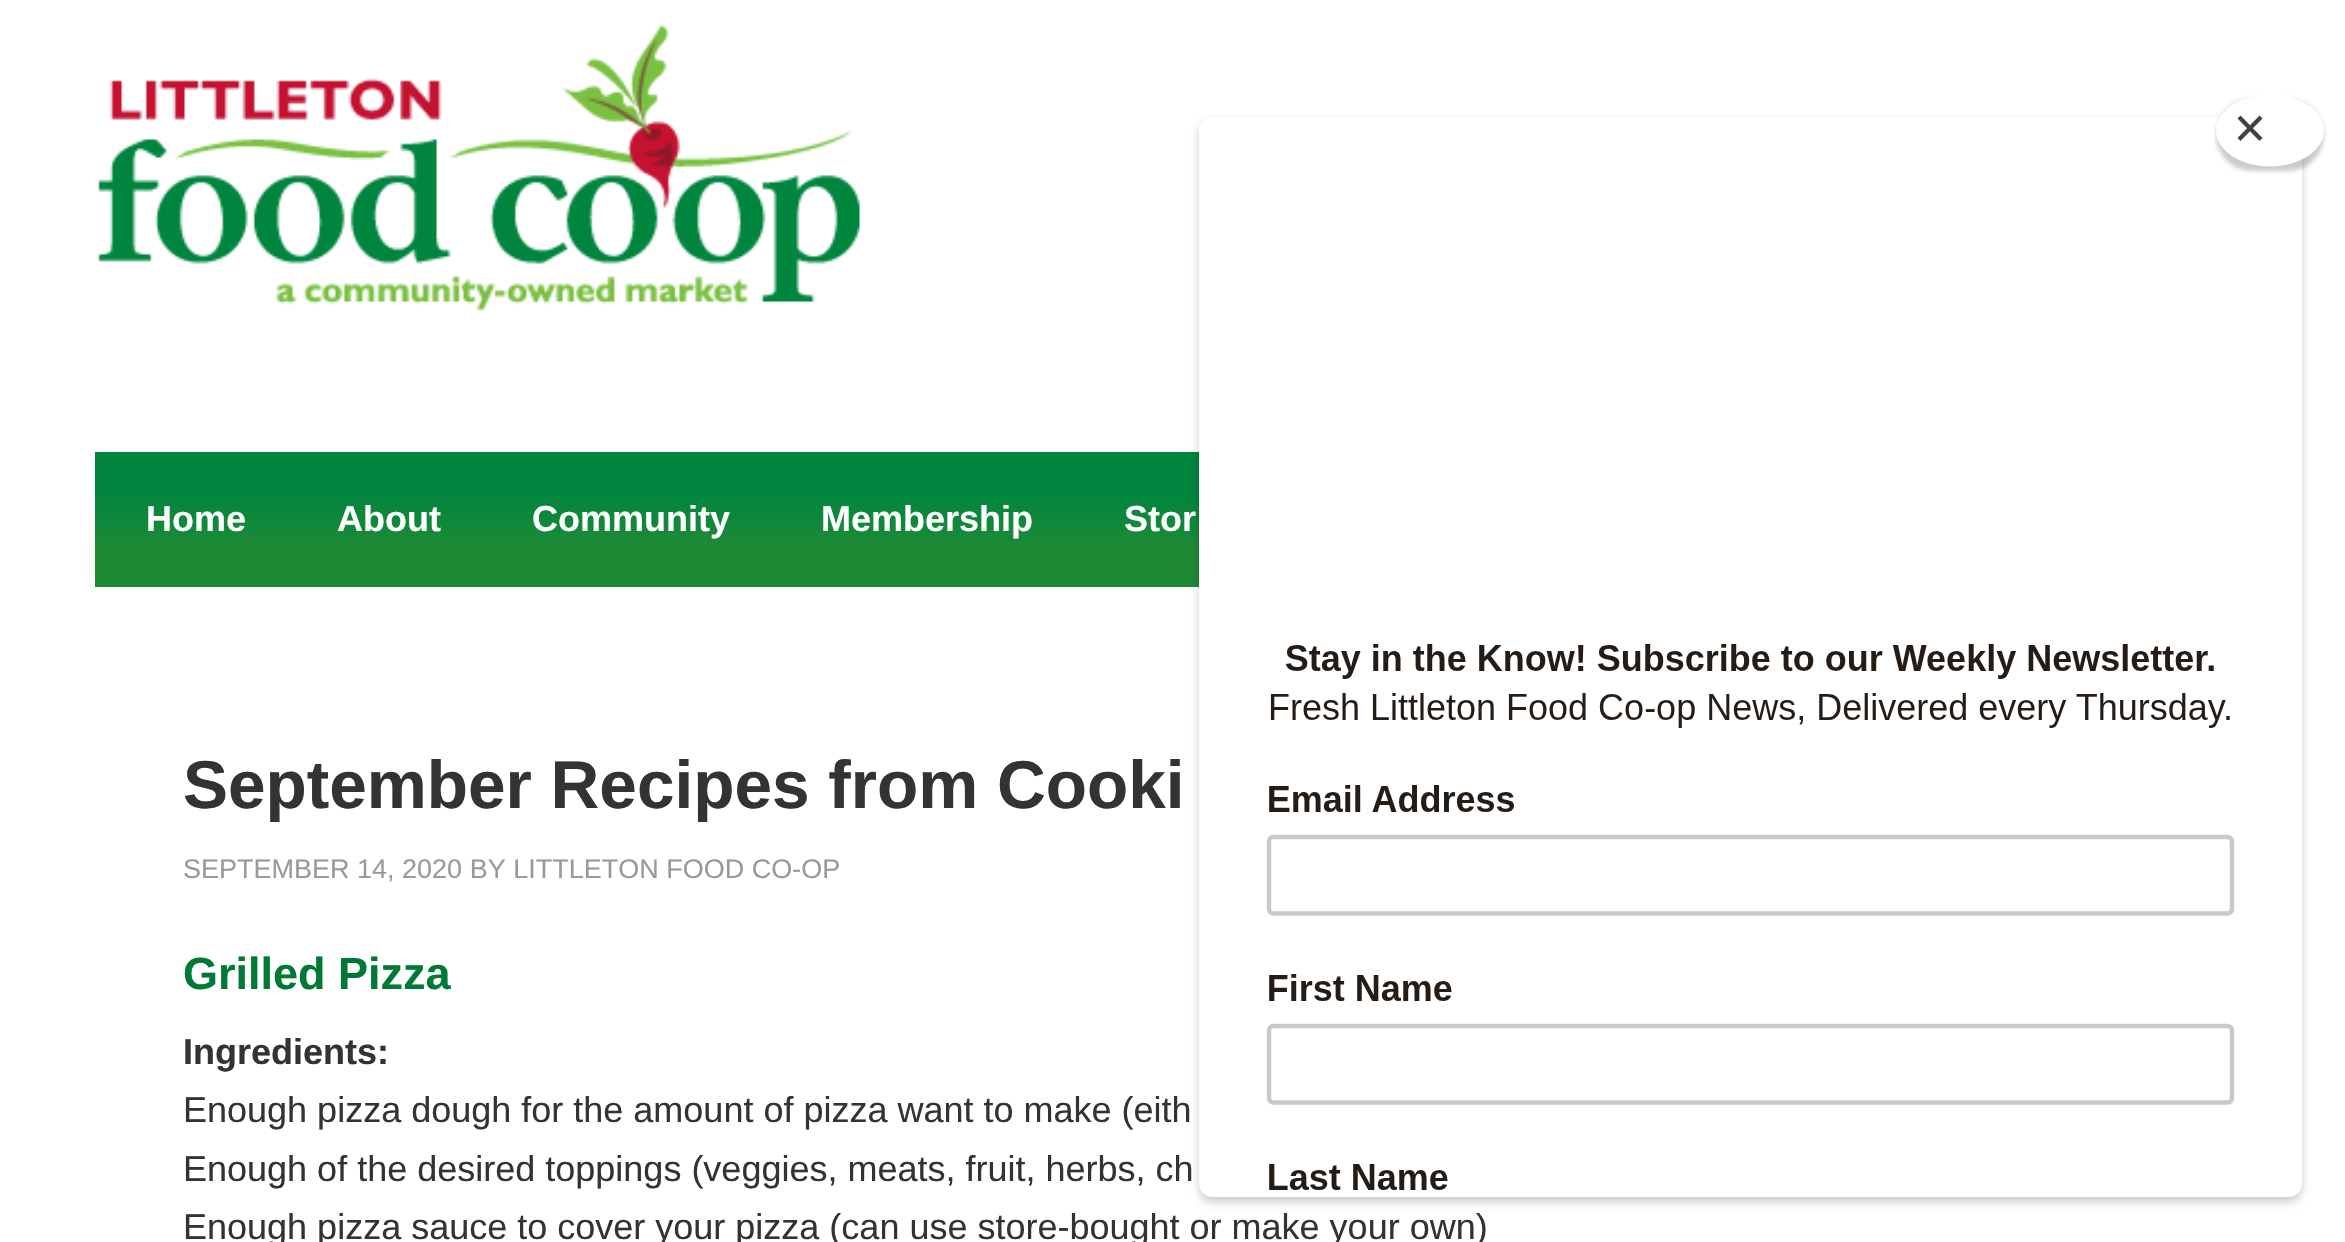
#include "include/core/SkBlurTypes.h"
#include "include/core/SkCanvas.h"
#include "include/core/SkData.h"
#include "include/core/SkFont.h"
#include "include/core/SkFontMgr.h"
#include "include/core/SkImage.h"
#include "include/core/SkMaskFilter.h"
#include "include/core/SkPaint.h"
#include "include/core/SkPathBuilder.h"
#include "include/core/SkTextBlob.h"
#include "include/effects/SkDashPathEffect.h"
#include "include/effects/SkGradientShader.h"
#include "include/utils/SkParsePath.h"

extern sk_sp<SkFontMgr> fontMgr;

void draw(SkCanvas* canvas) {
    SkPaint p;
    p.setAntiAlias(true);
    auto font = [&](const char* family, int weight, float size, bool italic = false) {
        SkFontStyle style(weight, SkFontStyle::kNormal_Width,
            italic ? SkFontStyle::kItalic_Slant : SkFontStyle::kUpright_Slant);
        SkFont result(fontMgr->matchFamilyStyle(family, style), size);
        result.setSubpixel(true);
        return result;
    };
    auto drawPhoto = [&](const char* path, float l, float t, float r, float b) {
        auto image = SkImages::DeferredFromEncodedData(SkData::MakeFromFileName(path));
        canvas->drawImageRect(image, SkRect::MakeLTRB(l, t, r, b), SkSamplingOptions());
    };
    canvas->clear(0xFFFFFFFF);
    drawPhoto("media/1.png", 98, 24, 860, 311);
    {
        const SkColor colors[] = {0xFF00853E, 0xFF1E8A36};
        const float stops[] = {0.3f, 0.7f};
        const SkPoint ends[] = {{1175, 452}, {1175, 587}};
        p.setShader(SkGradientShader::MakeLinear(ends, colors, stops, 2, SkTileMode::kClamp));
        p.setAlpha(255);
    }
    canvas->drawRect(SkRect::MakeLTRB(95, 452, 1199, 587), p);
    auto font1 = font("Liberation Sans", 700, 36);
    p.setShader(nullptr);
    p.setColor(0xFFFFFFFF);
    {
        const struct { const char* s; float x, y; } items[] = {
            {"Home", 146, 531},
            {"About", 337, 531},
            {"Community", 532, 531},
            {"Membership", 821, 531},
            {"Stor", 1124, 531},
        };
        for (auto [s, x, y] : items) {
            canvas->drawString(s, x, y, font1, p);
        }
    }
    auto font2 = font("Liberation Sans", 700, 67.5f);
    p.setColor(0xFF333333);
    canvas->drawString("September Recipes from Cooki", 183, 808, font2, p);
    auto font3 = font("Liberation Sans", 400, 27);
    p.setColor(0xFF999999);
    canvas->drawString("SEPTEMBER 14, 2020 BY LITTLETON FOOD CO-OP", 183, 878, font3, p);
    auto font4 = font("Liberation Sans", 700, 45);
    p.setColor(0xFF007934);
    canvas->drawString("Grilled Pizza", 183, 989, font4, p);
    p.setColor(0xFF333333);
    canvas->drawString("Ingredients:", 183, 1064, font1, p);
    auto font5 = font("Liberation Sans", 400, 36);
    {
        const struct { const char* s; float x, y; } items[] = {
            {"Enough pizza dough for the amount of pizza want to make (eith", 183, 1122},
            {"Enough of the desired toppings (veggies, meats, fruit, herbs, ch", 183, 1181},
            {"Enough pizza sauce to cover your pizza (can use store-bought or make your own)", 183, 1239},
        };
        for (auto [s, x, y] : items) {
            canvas->drawString(s, x, y, font5, p);
        }
    }
    p.setColor(0x33000000);
    p.setMaskFilter(SkMaskFilter::MakeBlur(kNormal_SkBlurStyle, 4.5f));
    canvas->drawRoundRect(SkRect::MakeLTRB(1199, 122, 2302, 1202), 14, 14, p);
    p.setMaskFilter(nullptr);
    p.setColor(0xFFFFFFFF);
    canvas->drawRoundRect(SkRect::MakeLTRB(1199, 117, 2302, 1197), 14, 14, p);
    p.setColor(0x33000000);
    p.setMaskFilter(SkMaskFilter::MakeBlur(kNormal_SkBlurStyle, 2));
    canvas->drawRoundRect(SkRect::MakeLTRB(2216, 99, 2324, 171), 36, 36, p);
    p.setMaskFilter(nullptr);
    p.setColor(0xFFFFFFFF);
    canvas->drawOval(SkRect::MakeLTRB(2216, 94.5f, 2324, 166.5f), p);
    p.setColor(0xFF414141);
    canvas->drawPath(SkPathBuilder().moveTo(2259.5f, 115.5f).lineTo(2262.5f, 118.5f).lineTo(2240.5f, 141).lineTo(2237.5f, 138).close().detach(), p);
    canvas->drawPath(SkPathBuilder().moveTo(2237.5f, 118.5f).lineTo(2240.5f, 115.5f).lineTo(2262.5f, 138).lineTo(2259.5f, 141).close().detach(), p);
    drawPhoto("media/2.png", 1200, 644, 2301, 1197);
}
